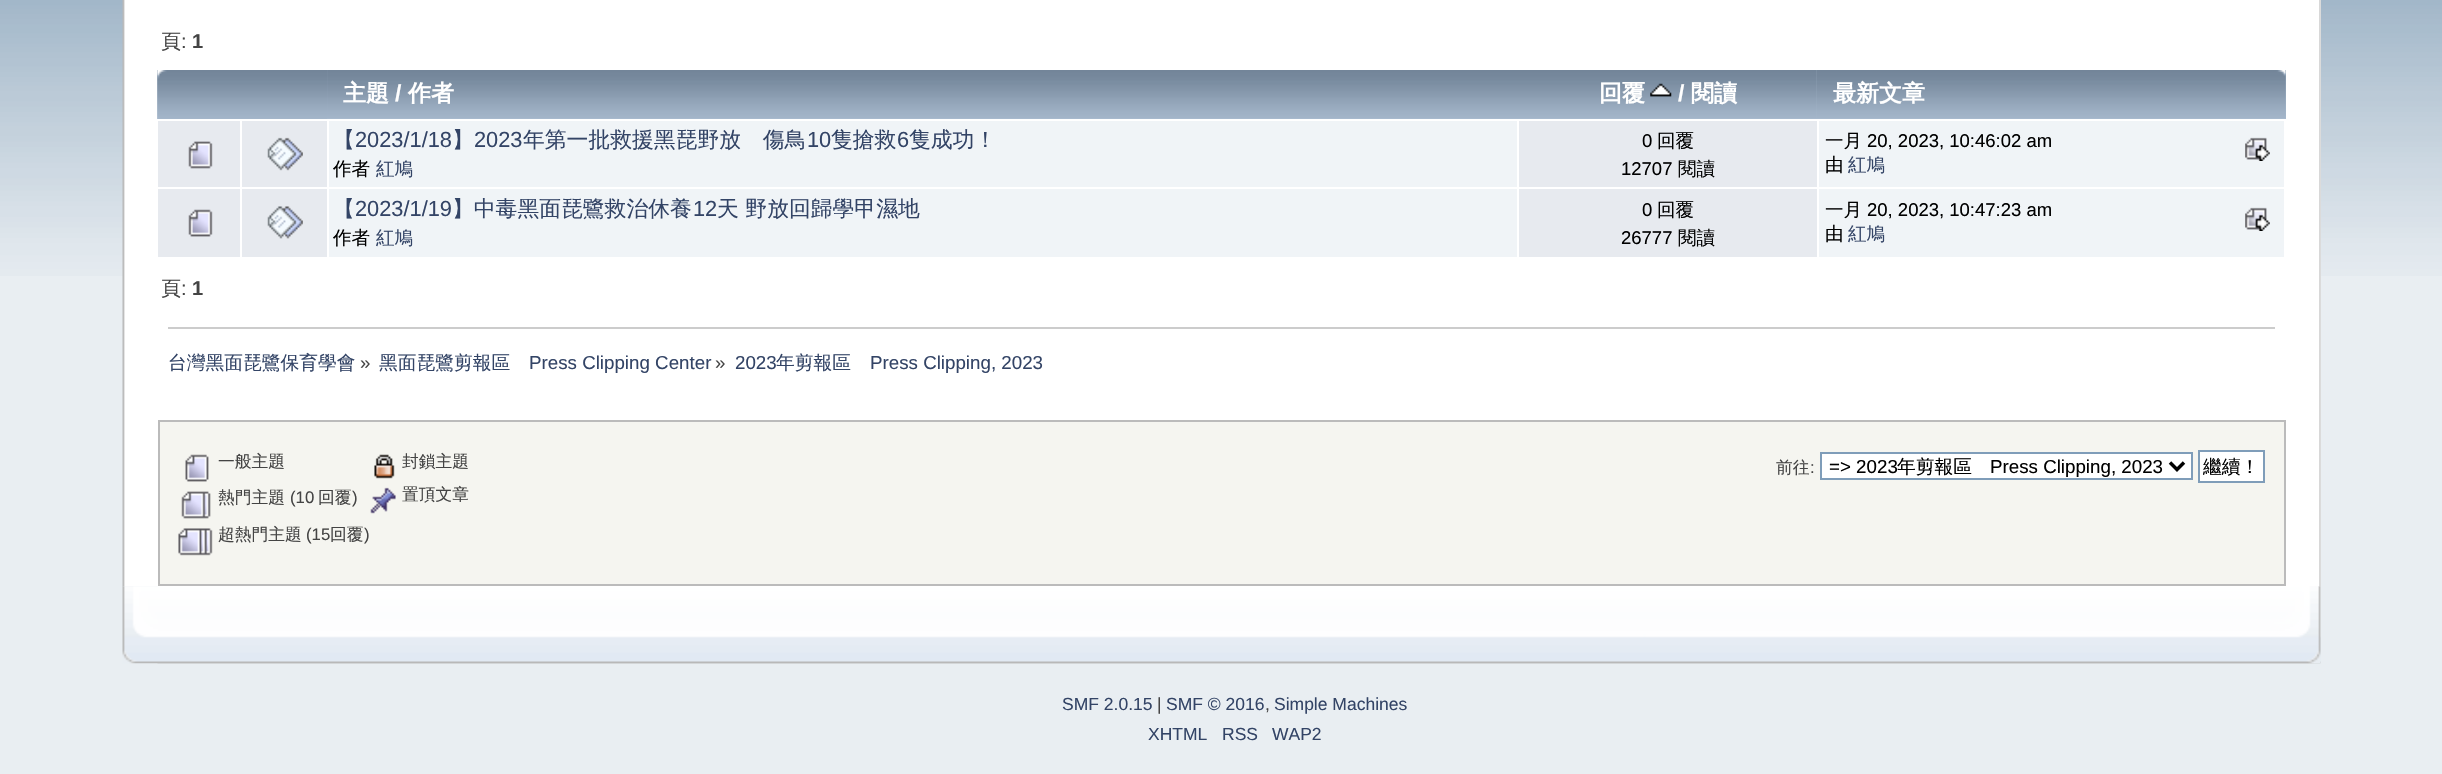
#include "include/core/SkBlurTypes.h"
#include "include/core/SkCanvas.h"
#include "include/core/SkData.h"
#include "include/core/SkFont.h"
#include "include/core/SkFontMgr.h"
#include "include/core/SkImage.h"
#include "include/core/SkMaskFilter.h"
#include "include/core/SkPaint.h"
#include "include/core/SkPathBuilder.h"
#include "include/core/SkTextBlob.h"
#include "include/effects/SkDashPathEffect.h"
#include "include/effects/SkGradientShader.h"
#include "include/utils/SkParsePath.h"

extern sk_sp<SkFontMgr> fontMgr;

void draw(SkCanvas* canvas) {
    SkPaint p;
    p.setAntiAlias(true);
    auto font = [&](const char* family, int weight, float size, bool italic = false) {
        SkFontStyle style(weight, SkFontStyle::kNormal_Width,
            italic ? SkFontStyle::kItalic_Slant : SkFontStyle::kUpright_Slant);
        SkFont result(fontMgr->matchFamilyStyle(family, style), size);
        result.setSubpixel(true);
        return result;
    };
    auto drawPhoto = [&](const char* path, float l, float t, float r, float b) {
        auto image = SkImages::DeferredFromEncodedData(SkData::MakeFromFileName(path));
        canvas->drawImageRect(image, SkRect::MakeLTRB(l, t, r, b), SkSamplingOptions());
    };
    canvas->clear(0xFFE9EEF2);
    drawPhoto("media/1.png", 0, 0, 2442, 276);
    p.setColor(0xFFFFFFFF);
    canvas->drawRect(SkRect::MakeLTRB(2320, 0, 2321, 586), p);
    drawPhoto("media/2.png", 122, 0, 2320, 587);
    drawPhoto("media/3.png", 158, 0, 2321, 587);
    auto font1 = font("WenQuanYi Zen Hei", 500, 20);
    p.setColor(0xFF444444);
    canvas->drawString("頁", 161, 48, font1, p);
    auto font2 = font("Liberation Sans", 400, 20);
    canvas->drawString(":", 181, 48, font2, p);
    auto font3 = font("Liberation Sans", 700, 20);
    canvas->drawString("1", 192, 48, font3, p);
    p.setColor(0xFFA7B9CD);
    canvas->drawRect(SkRect::MakeLTRB(327, 70, 2286, 119), p);
    drawPhoto("media/4.png", 157, 70, 327, 119);
    drawPhoto("media/5.png", 327, 70, 1519, 118);
    auto font4 = font("WenQuanYi Zen Hei", 700, 23);
    p.setColor(0xFFFFFFFF);
    canvas->drawString("主題", 343, 101, font4, p);
    auto font5 = font("Liberation Sans", 700, 23);
    canvas->drawString("/", 395, 101, font5, p);
    canvas->drawString("作者", 408, 101, font4, p);
    drawPhoto("media/6.png", 1519, 70, 1817, 118);
    canvas->drawString("回覆", 1599, 101, font4, p);
    drawPhoto("media/7.png", 1650, 83, 1672, 97);
    canvas->drawString("/", 1678, 101, font5, p);
    canvas->drawString("閱讀", 1691, 101, font4, p);
    drawPhoto("media/8.png", 1816, 70, 2286, 118);
    canvas->drawString("最新文章", 1833, 101, font4, p);
    p.setColor(0xFFE7EAEF);
    canvas->drawRect(SkRect::MakeLTRB(158, 121, 240, 187), p);
    drawPhoto("media/9.png", 188, 141, 213, 169);
    canvas->drawRect(SkRect::MakeLTRB(242, 121, 327, 187), p);
    drawPhoto("media/10.png", 267, 137, 303, 171);
    p.setColor(0xFFF0F4F7);
    canvas->drawRect(SkRect::MakeLTRB(329, 121, 1517, 187), p);
    auto font6 = font("WenQuanYi Zen Hei", 500, 21.8f);
    p.setColor(0xFF334466);
    canvas->drawString("【", 333, 147, font6, p);
    auto font7 = font("Liberation Sans", 400, 21.8f);
    canvas->drawString("2023/1/18", 355, 147, font7, p);
    canvas->drawString("】", 452, 147, font6, p);
    canvas->drawString("2023", 474, 147, font7, p);
    canvas->drawString("年第一批救援黑琵野放　傷鳥", 523, 147, font6, p);
    canvas->drawString("10", 807, 147, font7, p);
    canvas->drawString("隻搶救", 831, 147, font6, p);
    canvas->drawString("6", 897, 147, font7, p);
    canvas->drawString("隻成功！", 909, 147, font6, p);
    auto font8 = font("WenQuanYi Zen Hei", 500, 18.5f);
    p.setColor(0xFF000000);
    canvas->drawString("作者", 333, 175, font8, p);
    p.setColor(0xFF334466);
    canvas->drawString("紅鳩", 376, 175, font8, p);
    p.setColor(0xFFE7EAEF);
    canvas->drawRect(SkRect::MakeLTRB(1519, 121, 1817, 187), p);
    auto font9 = font("Liberation Sans", 400, 18.5f);
    p.setColor(0xFF000000);
    canvas->drawString("0", 1642, 147, font9, p);
    canvas->drawString("回覆", 1657, 147, font8, p);
    canvas->drawString("12707", 1621, 175, font9, p);
    canvas->drawString("閱讀", 1678, 175, font8, p);
    p.setColor(0xFFF0F4F7);
    canvas->drawRect(SkRect::MakeLTRB(1819, 121, 2284, 187), p);
    p.setColor(0xFF000000);
    canvas->drawString("一月", 1825, 147, font8, p);
    canvas->drawString("20, 2023, 10:46:02 am", 1867, 147, font9, p);
    drawPhoto("media/11.png", 2245, 137, 2270, 161);
    canvas->drawString("由", 1825, 171, font8, p);
    p.setColor(0xFF334466);
    canvas->drawString("紅鳩", 1848, 171, font8, p);
    p.setColor(0xFFE7EAEF);
    canvas->drawRect(SkRect::MakeLTRB(158, 189, 240, 257), p);
    drawPhoto("media/12.png", 188, 209, 213, 237);
    canvas->drawRect(SkRect::MakeLTRB(242, 189, 327, 257), p);
    drawPhoto("media/13.png", 267, 206, 303, 239);
    p.setColor(0xFFF0F4F7);
    canvas->drawRect(SkRect::MakeLTRB(329, 189, 1517, 257), p);
    p.setColor(0xFF334466);
    canvas->drawString("【", 333, 216, font6, p);
    canvas->drawString("2023/1/19", 355, 216, font7, p);
    canvas->drawString("】中毒黑面琵鷺救治休養", 452, 216, font6, p);
    canvas->drawString("12", 693, 216, font7, p);
    canvas->drawString("天 野放回歸學甲濕地", 717, 216, font6, p);
    p.setColor(0xFF000000);
    canvas->drawString("作者", 333, 244, font8, p);
    p.setColor(0xFF334466);
    canvas->drawString("紅鳩", 376, 244, font8, p);
    p.setColor(0xFFE7EAEF);
    canvas->drawRect(SkRect::MakeLTRB(1519, 189, 1817, 257), p);
    p.setColor(0xFF000000);
    canvas->drawString("0", 1642, 216, font9, p);
    canvas->drawString("回覆", 1657, 216, font8, p);
    canvas->drawString("26777", 1621, 244, font9, p);
    canvas->drawString("閱讀", 1678, 244, font8, p);
    p.setColor(0xFFF0F4F7);
    canvas->drawRect(SkRect::MakeLTRB(1819, 189, 2284, 257), p);
    p.setColor(0xFF000000);
    canvas->drawString("一月", 1825, 216, font8, p);
    canvas->drawString("20, 2023, 10:47:23 am", 1867, 216, font9, p);
    drawPhoto("media/11.png", 2245, 207, 2270, 231);
    canvas->drawString("由", 1825, 240, font8, p);
    p.setColor(0xFF334466);
    canvas->drawString("紅鳩", 1848, 240, font8, p);
    p.setColor(0xFF444444);
    canvas->drawString("頁", 161, 295, font1, p);
    canvas->drawString(":", 181, 295, font2, p);
    canvas->drawString("1", 192, 295, font3, p);
    p.setColor(0xFFCCCCCC);
    canvas->drawRect(SkRect::MakeLTRB(168, 327, 2275, 329), p);
    auto font10 = font("WenQuanYi Zen Hei", 500, 18.75f);
    p.setColor(0xFF334466);
    canvas->drawString("台灣黑面琵鷺保育學會", 168, 369, font10, p);
    auto font11 = font("Liberation Sans", 400, 18.75f);
    p.setColor(0xFF444444);
    canvas->drawString("»", 360, 369, font11, p);
    p.setColor(0xFF334466);
    canvas->drawString("黑面琵鷺剪報區", 379, 369, font10, p);
    canvas->drawString("Press Clipping Center", 529, 369, font11, p);
    p.setColor(0xFF444444);
    canvas->drawString("»", 715, 369, font11, p);
    p.setColor(0xFF334466);
    canvas->drawString("2023", 735, 369, font11, p);
    canvas->drawString("年剪報區", 776, 369, font10, p);
    canvas->drawString("Press Clipping, 2023", 870, 369, font11, p);
    p.setColor(0xFFF5F5F0);
    canvas->drawRect(SkRect::MakeLTRB(159, 421, 2285, 585), p);
    p.setStyle(SkPaint::kStroke_Style);
    p.setStrokeWidth(2);
    p.setColor(0xFFBBBBBB);
    canvas->drawRect(SkRect::MakeLTRB(159, 421, 2285, 585), p);
    drawPhoto("media/14.png", 185, 454, 209, 482);
    auto font12 = font("WenQuanYi Zen Hei", 500, 16.75f);
    p.setStyle(SkPaint::kFill_Style);
    p.setColor(0xFF444444);
    canvas->drawString("一般主題", 218, 467, font12, p);
    drawPhoto("media/15.png", 181, 491, 211, 519);
    canvas->drawString("熱門主題", 218, 503, font12, p);
    auto font13 = font("Liberation Sans", 400, 16.75f);
    canvas->drawString("(10", 290, 503, font13, p);
    canvas->drawString("回覆", 318, 503, font12, p);
    canvas->drawString(")", 352, 503, font13, p);
    drawPhoto("media/16.png", 178, 528, 213, 556);
    canvas->drawString("超熱門主題", 218, 540, font12, p);
    canvas->drawString("(15", 306, 540, font13, p);
    canvas->drawString("回覆", 330, 540, font12, p);
    canvas->drawString(")", 364, 540, font13, p);
    drawPhoto("media/17.png", 374, 454, 395, 479);
    canvas->drawString("封鎖主題", 402, 467, font12, p);
    drawPhoto("media/18.png", 370, 487, 396, 514);
    canvas->drawString("置頂文章", 402, 500, font12, p);
    canvas->drawString("前往", 1776, 473, font12, p);
    canvas->drawString(":", 1810, 473, font13, p);
    p.setColor(0xFFFFFFFF);
    canvas->drawRect(SkRect::MakeLTRB(1821, 453, 2192, 479), p);
    p.setStyle(SkPaint::kStroke_Style);
    p.setColor(0xFF7F9DB9);
    canvas->drawRect(SkRect::MakeLTRB(1821, 453, 2192, 479), p);
    p.setStrokeWidth(3.5f);
    p.setColor(0xFF000000);
    canvas->drawPath(SkPathBuilder().moveTo(2170, 462.5f).lineTo(2177, 469.5f).lineTo(2184, 462.5f).detach(), p);
    p.setStyle(SkPaint::kFill_Style);
    canvas->drawString("=> 2023", 1829, 473, font11, p);
    canvas->drawString("年剪報區", 1897, 473, font10, p);
    canvas->drawString("Press Clipping, 2023", 1990, 473, font11, p);
    p.setColor(0xFFFFFFFF);
    canvas->drawRect(SkRect::MakeLTRB(2199, 451, 2264, 482), p);
    p.setStyle(SkPaint::kStroke_Style);
    p.setStrokeWidth(2);
    p.setColor(0xFF7F9DB9);
    canvas->drawRect(SkRect::MakeLTRB(2199, 451, 2264, 482), p);
    p.setStyle(SkPaint::kFill_Style);
    p.setColor(0xFF000000);
    canvas->drawString("繼續！", 2203, 473, font10, p);
    drawPhoto("media/19.png", 122, 586, 2321, 664);
    drawPhoto("media/20.png", 157, 586, 2321, 664);
    auto font14 = font("Liberation Sans", 400, 17.5f);
    p.setColor(0xFF334466);
    canvas->drawString("SMF 2.0.15", 1062, 710, font14, p);
    p.setColor(0xFF444444);
    canvas->drawString("|", 1157, 710, font14, p);
    p.setColor(0xFF334466);
    canvas->drawString("SMF © 2016", 1166, 710, font14, p);
    p.setColor(0xFF444444);
    canvas->drawString(",", 1265, 710, font14, p);
    p.setColor(0xFF334466);
    {
        const struct { const char* s; float x, y; } items[] = {
            {"Simple Machines", 1274, 710},
            {"XHTML", 1148, 740},
            {"RSS", 1222, 740},
            {"WAP2", 1272, 740},
        };
        for (auto [s, x, y] : items) {
            canvas->drawString(s, x, y, font14, p);
        }
    }
}
